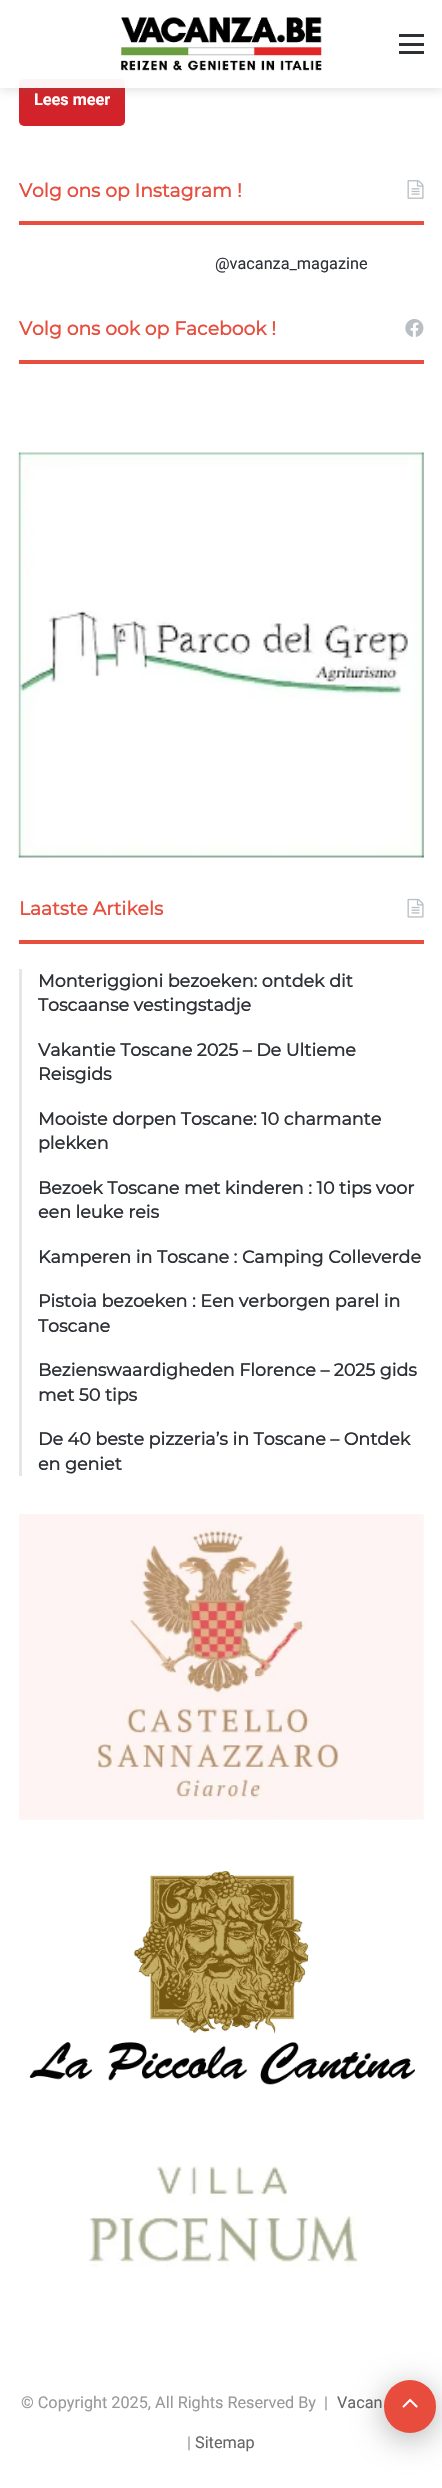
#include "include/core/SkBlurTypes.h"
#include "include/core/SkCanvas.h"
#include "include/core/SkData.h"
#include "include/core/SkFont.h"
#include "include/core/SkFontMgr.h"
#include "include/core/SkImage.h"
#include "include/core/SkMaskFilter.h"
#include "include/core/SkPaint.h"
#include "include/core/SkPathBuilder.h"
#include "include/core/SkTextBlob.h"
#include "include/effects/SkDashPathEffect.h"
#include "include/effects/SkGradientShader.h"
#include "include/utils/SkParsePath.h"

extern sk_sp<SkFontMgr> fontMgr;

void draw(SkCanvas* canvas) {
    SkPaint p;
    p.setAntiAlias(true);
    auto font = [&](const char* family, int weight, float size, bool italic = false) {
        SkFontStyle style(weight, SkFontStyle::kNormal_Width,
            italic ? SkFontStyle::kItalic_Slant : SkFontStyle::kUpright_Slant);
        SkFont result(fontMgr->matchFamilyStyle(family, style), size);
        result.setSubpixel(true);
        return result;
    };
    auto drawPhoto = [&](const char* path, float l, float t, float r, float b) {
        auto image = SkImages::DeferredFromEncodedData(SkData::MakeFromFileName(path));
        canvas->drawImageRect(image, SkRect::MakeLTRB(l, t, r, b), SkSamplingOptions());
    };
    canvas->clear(0xFFFFFFFF);
    p.setColor(0xFFD12329);
    canvas->drawRoundRect(SkRect::MakeLTRB(19, 79, 125, 126), 5, 5, p);
    canvas->save();
    canvas->clipPath(SkPathBuilder(SkPathFillType::kEvenOdd).moveTo(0, 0).lineTo(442, 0).lineTo(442, 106).lineTo(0, 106).close().moveTo(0, 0).lineTo(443, 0).lineTo(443, 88).lineTo(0, 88).close().detach(), true);
    p.setColor(0x33636363);
    p.setMaskFilter(SkMaskFilter::MakeBlur(kNormal_SkBlurStyle, 5));
    canvas->drawRect(SkRect::MakeLTRB(0, 3, 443, 90), p);
    p.setMaskFilter(nullptr);
    canvas->restore();
    p.setColor(0xF2FFFFFF);
    canvas->drawRect(SkRect::MakeLTRB(0, 79, 442, 88), p);
    drawPhoto("media/1.png", 121, 17, 322, 71);
    {
        const struct { float l, t, r, b; SkColor color; } items[] = {
            {399, 43, 424, 46, 0xFF2C2F34},
            {399, 34, 424, 37, 0xFF2C2F34},
            {399, 51, 424, 54, 0xFF2C2F34},
        };
        for (auto [l, t, r, b, color] : items) {
            p.setColor(color);
            canvas->drawRect(SkRect::MakeLTRB(l, t, r, b), p);
        }
    }
    auto font1 = font("Roboto", 700, 16.25f);
    p.setColor(0xFFFFFFFF);
    canvas->drawString("Lees meer", 34, 105, font1, p);
    p.setColor(0xFFE74E3E);
    canvas->drawRect(SkRect::MakeLTRB(19, 221, 424, 225), p);
    auto font2 = font("Montserrat", 700, 18.75f);
    canvas->drawString("Volg ons op Instagram !", 19, 197, font2, p);
    drawPhoto("media/2.png", 407, 180, 424, 199);
    auto font3 = font("Roboto", 400, 16.25f);
    p.setColor(0xFF2E3136);
    canvas->drawString("@vacanza_magazine", 215, 269, font3, p);
    p.setColor(0xFFE74E3E);
    canvas->drawRect(SkRect::MakeLTRB(19, 360, 424, 364), p);
    canvas->drawString("Volg ons ook op Facebook !", 19, 335, font2, p);
    drawPhoto("media/3.png", 405, 319, 424, 337);
    drawPhoto("media/4.png", 18, 452, 424, 858);
    canvas->drawRect(SkRect::MakeLTRB(19, 940, 424, 944), p);
    canvas->drawString("Laatste Artikels", 19, 915, font2, p);
    drawPhoto("media/5.png", 407, 898, 424, 918);
    p.setColor(0xFFE6E6E6);
    canvas->drawRect(SkRect::MakeLTRB(19, 969, 22, 1476), p);
    auto font4 = font("Montserrat", 700, 17.5f);
    p.setColor(0xFF2E3136);
    {
        const struct { const char* s; float x, y; } items[] = {
            {"Monteriggioni bezoeken: ontdek dit", 38, 987},
            {"Toscaanse vestingstadje", 38, 1011},
            {"Vakantie Toscane 2025 – De Ultieme", 38, 1056},
            {"Reisgids", 38, 1080},
            {"Mooiste dorpen Toscane: 10 charmante", 38, 1125},
            {"plekken", 38, 1149},
            {"Bezoek Toscane met kinderen : 10 tips voor", 38, 1194},
            {"een leuke reis", 38, 1218},
            {"Kamperen in Toscane : Camping Colleverde", 38, 1263},
            {"Pistoia bezoeken : Een verborgen parel in", 38, 1307},
            {"Toscane", 38, 1332},
            {"Bezienswaardigheden Florence – 2025 gids", 38, 1376},
            {"met 50 tips", 38, 1401},
            {"De 40 beste pizzeria’s in Toscane – Ontdek", 38, 1445},
            {"en geniet", 38, 1470},
        };
        for (auto [s, x, y] : items) {
            canvas->drawString(s, x, y, font4, p);
        }
    }
    drawPhoto("media/6.png", 19, 1514, 424, 1820);
    drawPhoto("media/7.png", 29, 1871, 415, 2085);
    drawPhoto("media/8.png", 89, 2166, 358, 2267);
    p.setColor(0xFF999999);
    canvas->drawString("© Copyright 2025, All Rights Reserved By  |", 21, 2408, font3, p);
    p.setColor(0xFF666666);
    canvas->drawString("Vacan", 337, 2408, font3, p);
    p.setColor(0xFF999999);
    canvas->drawString("|", 187, 2448, font3, p);
    p.setColor(0xFF666666);
    canvas->drawString("Sitemap", 195, 2448, font3, p);
    p.setColor(0x4D000000);
    p.setMaskFilter(SkMaskFilter::MakeBlur(kNormal_SkBlurStyle, 15.5f));
    canvas->drawRoundRect(SkRect::MakeLTRB(384, 2386, 436, 2439), 26, 26, p);
    p.setMaskFilter(nullptr);
    p.setColor(0xFFE74C3C);
    canvas->drawRoundRect(SkRect::MakeLTRB(384, 2380, 436, 2433), 26, 26, p);
    drawPhoto("media/9.png", 402, 2398, 418, 2408);
}
